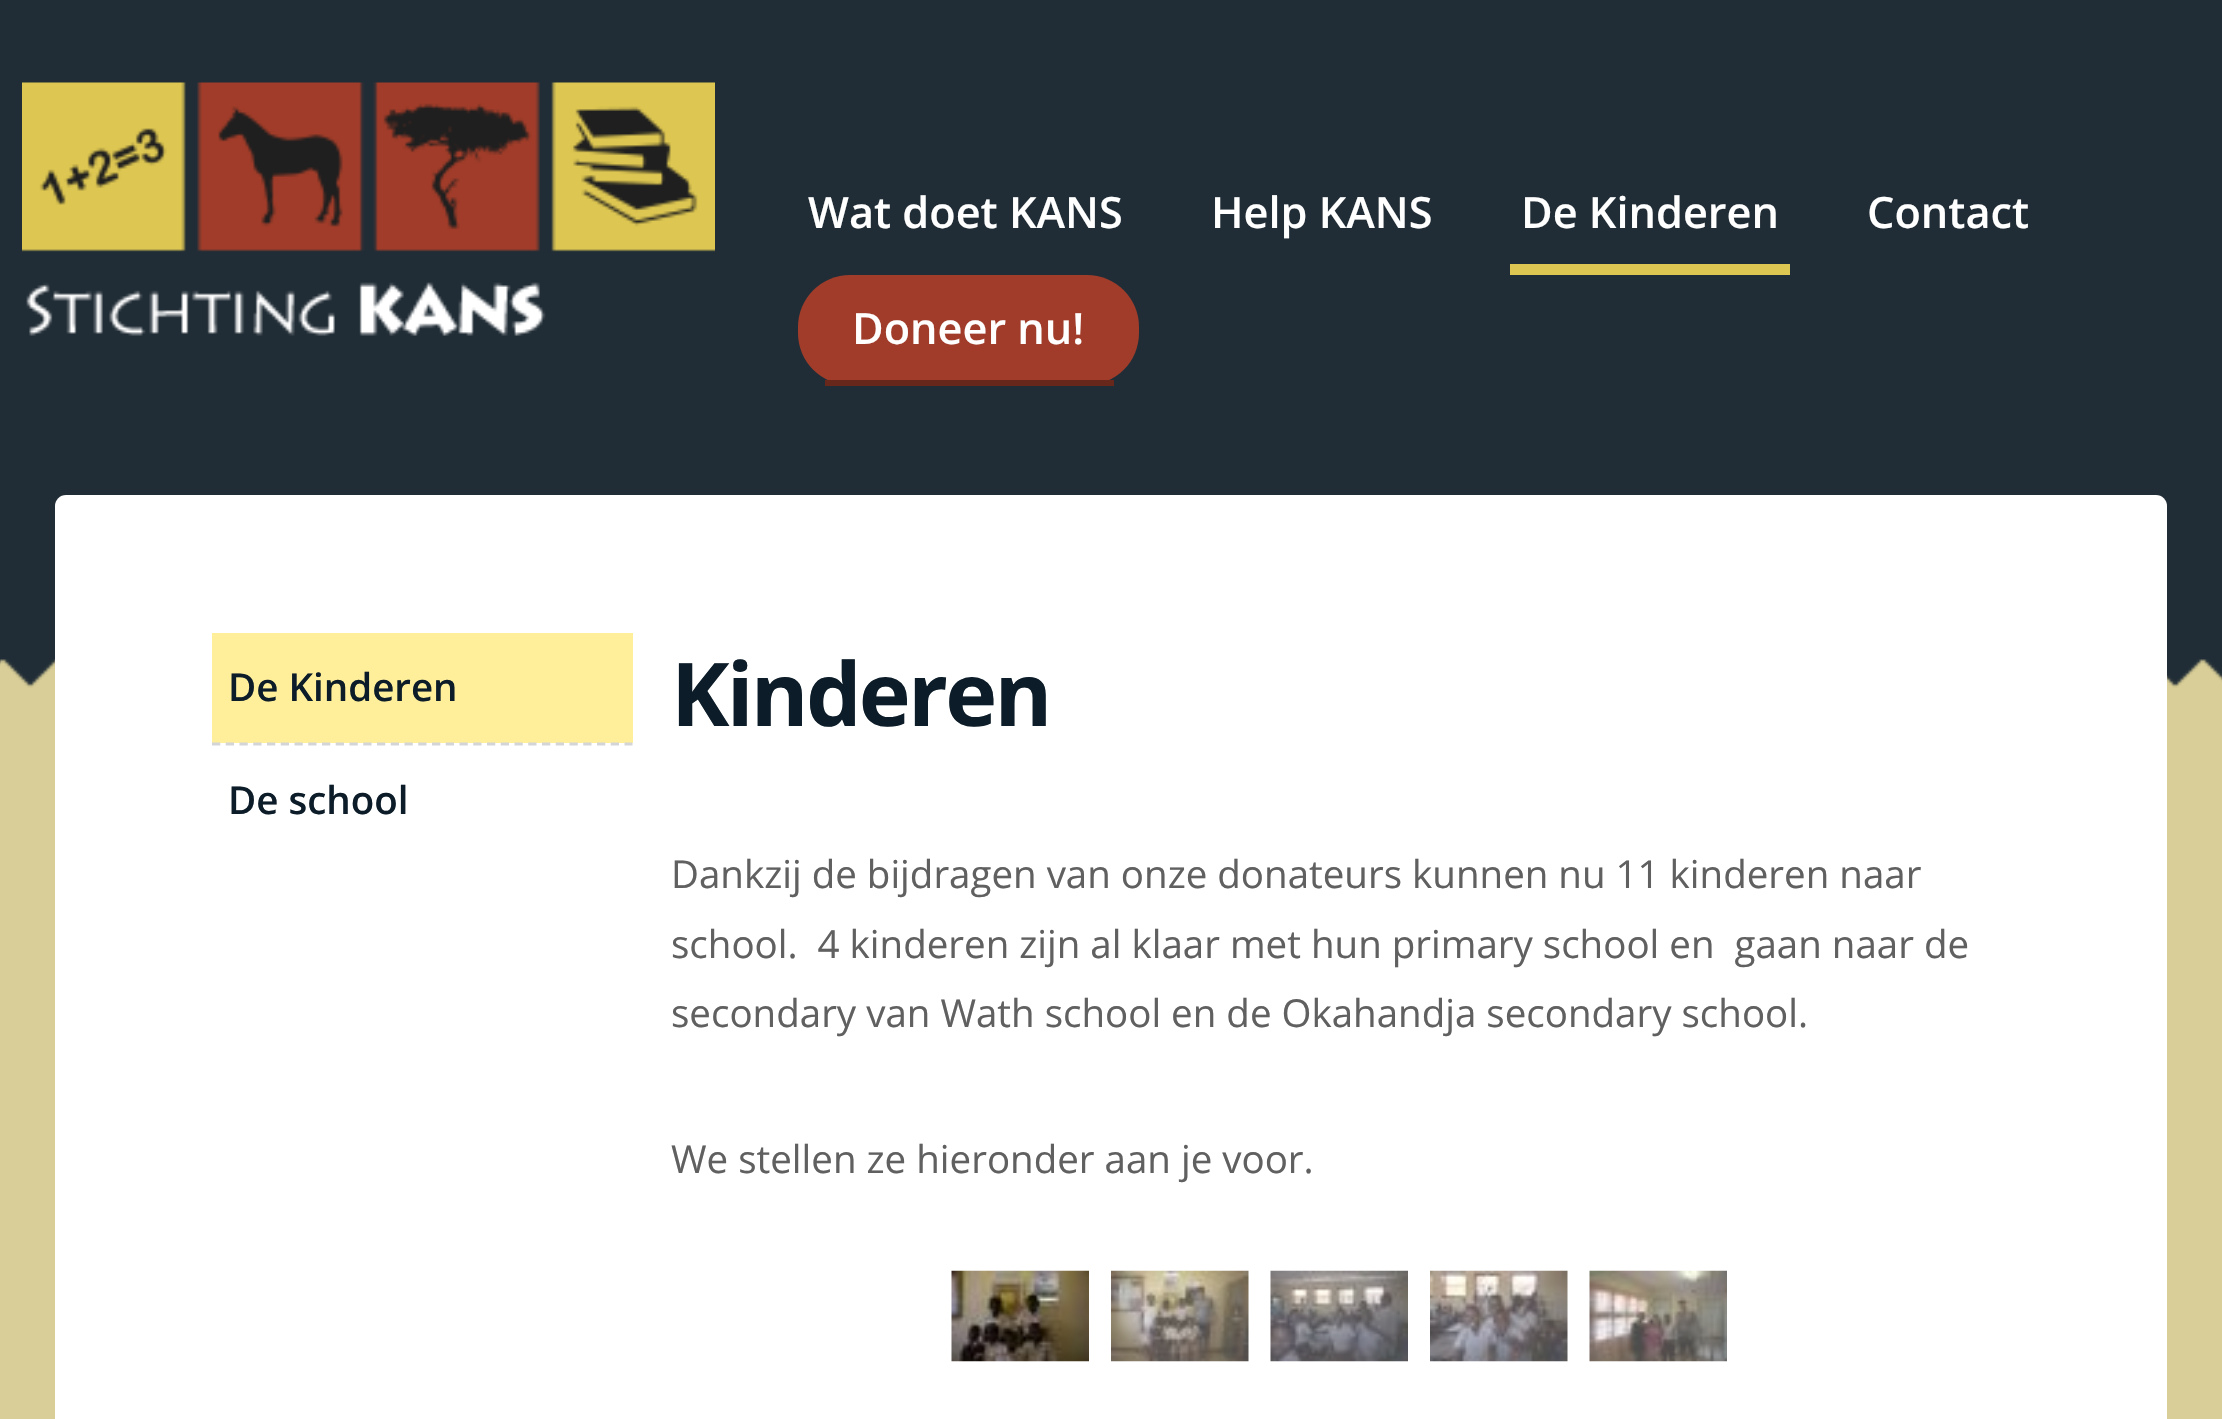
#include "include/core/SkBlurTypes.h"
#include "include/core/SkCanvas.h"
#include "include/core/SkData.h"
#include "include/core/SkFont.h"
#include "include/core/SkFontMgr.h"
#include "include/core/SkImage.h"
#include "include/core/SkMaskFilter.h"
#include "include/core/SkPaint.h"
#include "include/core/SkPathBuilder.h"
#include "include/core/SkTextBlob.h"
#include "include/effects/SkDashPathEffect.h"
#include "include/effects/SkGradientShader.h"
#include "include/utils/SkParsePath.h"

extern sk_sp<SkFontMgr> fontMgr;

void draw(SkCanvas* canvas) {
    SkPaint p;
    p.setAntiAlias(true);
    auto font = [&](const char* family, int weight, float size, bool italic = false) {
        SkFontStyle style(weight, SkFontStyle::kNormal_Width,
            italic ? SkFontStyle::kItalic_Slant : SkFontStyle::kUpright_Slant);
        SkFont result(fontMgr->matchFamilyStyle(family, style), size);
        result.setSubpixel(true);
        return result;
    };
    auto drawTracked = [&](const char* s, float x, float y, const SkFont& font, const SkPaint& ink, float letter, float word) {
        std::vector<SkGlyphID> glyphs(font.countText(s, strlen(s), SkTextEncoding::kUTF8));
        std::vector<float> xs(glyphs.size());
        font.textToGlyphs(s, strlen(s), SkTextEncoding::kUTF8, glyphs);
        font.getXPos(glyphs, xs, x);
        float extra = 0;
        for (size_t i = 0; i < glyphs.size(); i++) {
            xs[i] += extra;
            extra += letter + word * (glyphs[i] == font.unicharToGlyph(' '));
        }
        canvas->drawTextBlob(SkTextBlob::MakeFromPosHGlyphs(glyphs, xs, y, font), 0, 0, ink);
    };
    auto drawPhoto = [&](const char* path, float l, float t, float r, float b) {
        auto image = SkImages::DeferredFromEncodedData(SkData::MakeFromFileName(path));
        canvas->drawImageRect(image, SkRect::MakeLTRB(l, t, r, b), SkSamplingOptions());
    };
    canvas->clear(0xFFD9CE97);
    drawPhoto("media/1.png", 0, 0, 2222, 688);
    drawPhoto("media/2.png", 22, 82, 715, 336);
    auto font1 = font("Open Sans", 600, 43.25f);
    p.setColor(0xFFFFFFFF);
    canvas->drawString("Wat doet KANS", 808, 228, font1, p);
    canvas->drawString("Help KANS", 1211, 228, font1, p);
    p.setColor(0xFFDDC651);
    canvas->drawRect(SkRect::MakeLTRB(1510, 264, 1790, 275), p);
    p.setColor(0xFFFFFFFF);
    canvas->drawString("De Kinderen", 1521, 228, font1, p);
    canvas->drawString("Contact", 1867, 228, font1, p);
    p.setColor(0xFFA03C29);
    canvas->drawRoundRect(SkRect::MakeLTRB(798, 275, 1139, 385), 52, 52, p);
    p.setColor(0xFF68271B);
    canvas->drawRect(SkRect::MakeLTRB(825, 380, 1114, 386), p);
    p.setColor(0xFFFFFFFF);
    canvas->drawString("Doneer nu!", 852, 344, font1, p);
    canvas->drawRoundRect(SkRect::MakeLTRB(55, 495, 2167, 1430), 11, 11, p);
    p.setColor(0xFFFFEF9B);
    canvas->drawRect(SkRect::MakeLTRB(212, 633, 633, 743), p);
    auto font2 = font("Open Sans", 600, 38.5f);
    p.setColor(0xFF0C1C28);
    canvas->drawString("De Kinderen", 228, 701, font2, p);
    p.setStyle(SkPaint::kStroke_Style);
    p.setStrokeWidth(2.8f);
    p.setColor(0xFFD3D5D7);
    p.setPathEffect(SkDashPathEffect::Make({{8.25f, 5.5f}}, 0));
    canvas->drawPath(SkPathBuilder().moveTo(212, 744).lineTo(632.5f, 744).detach(), p);
    p.setPathEffect(nullptr);
    p.setStyle(SkPaint::kFill_Style);
    p.setColor(0xFF0C1C28);
    canvas->drawString("De school", 228, 814, font2, p);
    auto font3 = font("Open Sans", 700, 88);
    drawTracked("Kinderen", 671, 726, font3, p, -2.75f, 0);
    auto font4 = font("Open Sans", 400, 38.5f);
    p.setColor(0xFF606060);
    {
        const struct { const char* s; float x, y; } items[] = {
            {"Dankzij de bijdragen van onze donateurs kunnen nu 11 kinderen naar", 671, 888},
            {"school.  4 kinderen zijn al klaar met hun primary school en  gaan naar de", 671, 958},
            {"secondary van Wath school en de Okahandja secondary school.", 671, 1027},
            {"We stellen ze hieronder aan je voor.", 671, 1173},
        };
        for (auto [s, x, y] : items) {
            canvas->drawString(s, x, y, font4, p);
        }
    }
    drawPhoto("media/3.png", 951, 1270, 1089, 1362);
    drawPhoto("media/4.png", 1111, 1270, 1249, 1362);
    drawPhoto("media/5.png", 1270, 1270, 1408, 1362);
    drawPhoto("media/6.png", 1430, 1270, 1568, 1362);
    drawPhoto("media/7.png", 1589, 1270, 1727, 1362);
}
